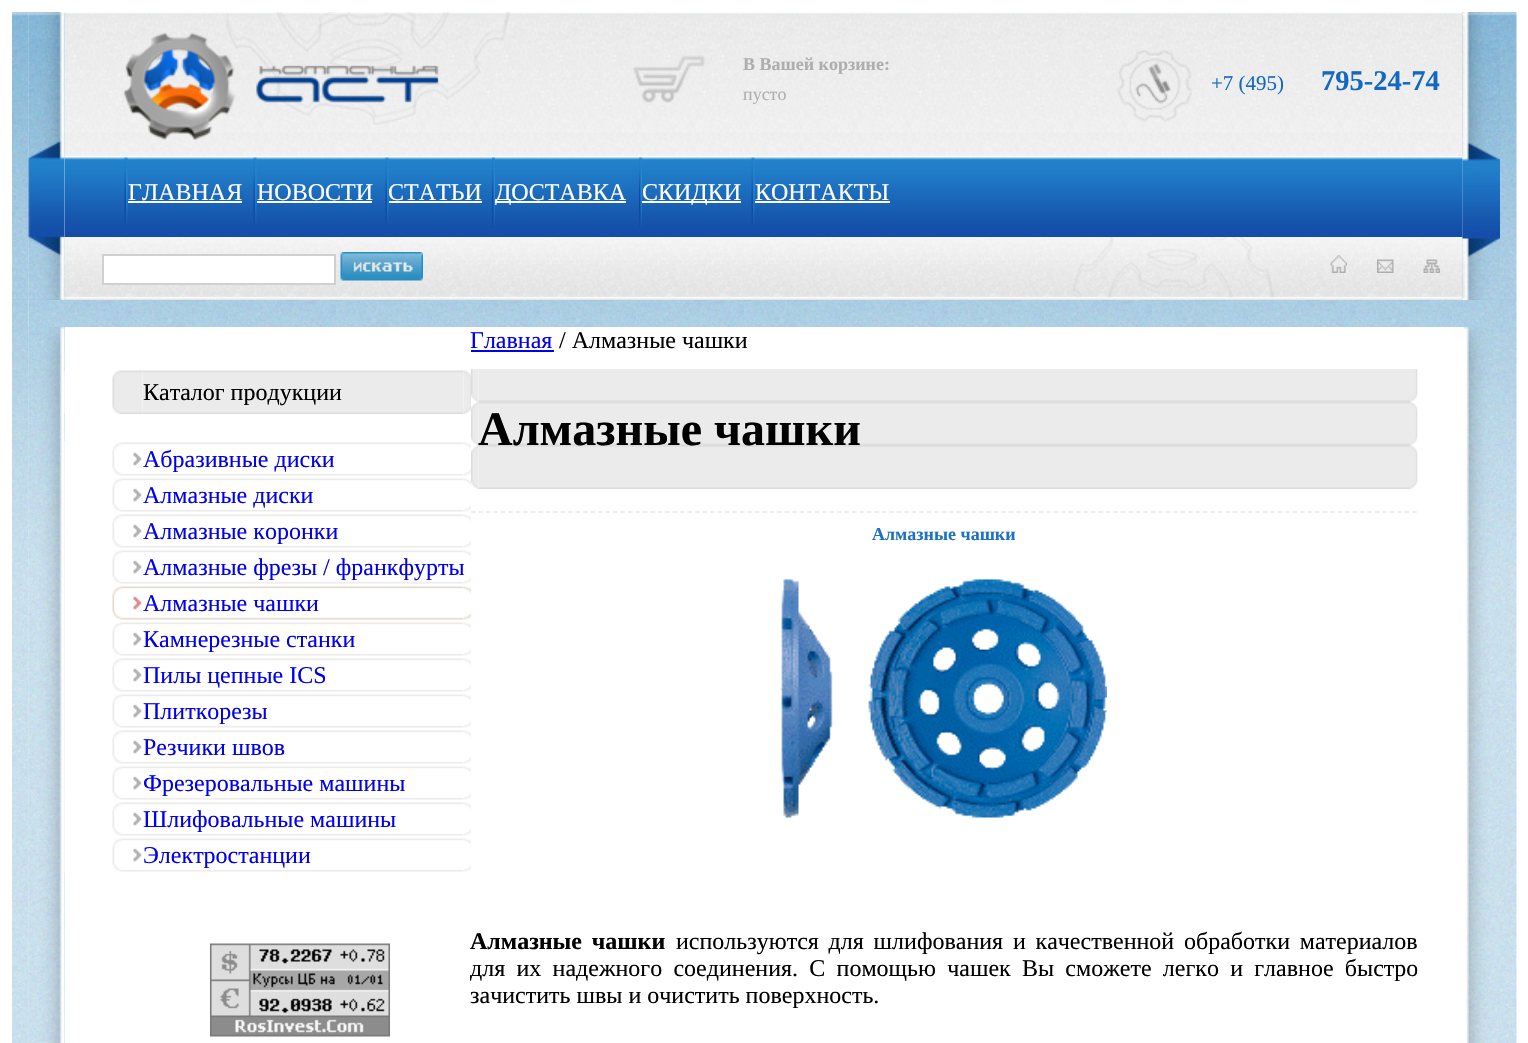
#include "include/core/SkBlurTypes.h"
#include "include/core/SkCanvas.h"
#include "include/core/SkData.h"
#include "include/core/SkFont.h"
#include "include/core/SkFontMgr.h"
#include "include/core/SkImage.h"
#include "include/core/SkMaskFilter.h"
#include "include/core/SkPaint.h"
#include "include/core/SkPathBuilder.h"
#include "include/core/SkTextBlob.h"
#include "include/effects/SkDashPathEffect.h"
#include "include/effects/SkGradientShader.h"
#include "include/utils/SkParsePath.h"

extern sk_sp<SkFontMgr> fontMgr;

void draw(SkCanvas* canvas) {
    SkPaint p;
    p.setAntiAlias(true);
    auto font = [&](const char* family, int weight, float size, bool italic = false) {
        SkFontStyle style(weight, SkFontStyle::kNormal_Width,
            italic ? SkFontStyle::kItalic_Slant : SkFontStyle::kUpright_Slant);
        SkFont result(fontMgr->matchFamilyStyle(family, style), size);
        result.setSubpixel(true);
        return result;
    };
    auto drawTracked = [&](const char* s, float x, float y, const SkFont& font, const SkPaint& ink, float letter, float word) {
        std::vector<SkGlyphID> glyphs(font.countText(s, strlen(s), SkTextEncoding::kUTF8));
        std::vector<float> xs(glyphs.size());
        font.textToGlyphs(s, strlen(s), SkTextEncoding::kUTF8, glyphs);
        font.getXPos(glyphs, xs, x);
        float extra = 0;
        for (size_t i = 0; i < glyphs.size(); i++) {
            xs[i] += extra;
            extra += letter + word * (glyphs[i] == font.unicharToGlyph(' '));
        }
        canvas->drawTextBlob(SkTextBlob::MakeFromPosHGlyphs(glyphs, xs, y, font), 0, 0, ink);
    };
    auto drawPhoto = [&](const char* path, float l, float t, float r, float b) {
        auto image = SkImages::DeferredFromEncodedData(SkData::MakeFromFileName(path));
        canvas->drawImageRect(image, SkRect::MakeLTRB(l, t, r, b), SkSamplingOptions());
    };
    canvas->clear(0xFFFFFFFF);
    drawPhoto("media/1.png", 12, 12, 29, 300);
    drawPhoto("media/2.png", 28, 12, 1463, 300);
    drawPhoto("media/3.png", 28, 12, 65, 300);
    drawPhoto("media/4.png", 64, 12, 1463, 300);
    drawPhoto("media/5.png", 226, 12, 510, 125);
    drawPhoto("media/6.png", 124, 32, 439, 140);
    drawPhoto("media/7.png", 633, 55, 705, 103);
    auto font1 = font("Liberation Serif", 700, 18);
    p.setColor(0xFFAEAEAE);
    canvas->drawString("В Вашей корзине:", 743, 70, font1, p);
    auto font2 = font("Liberation Serif", 400, 18);
    canvas->drawString("пустo", 743, 100, font2, p);
    drawPhoto("media/8.png", 1117, 50, 1192, 122);
    auto font3 = font("Liberation Serif", 400, 21);
    p.setColor(0xFF1468C1);
    canvas->drawString("+7 (495)", 1211, 90, font3, p);
    auto font4 = font("Liberation Serif", 700, 28.5f);
    canvas->drawString("795-24-74", 1321, 90, font4, p);
    drawPhoto("media/9.png", 64, 157, 1463, 237);
    drawPhoto("media/10.png", 124, 157, 128, 224);
    auto font5 = font("Liberation Serif", 400, 24);
    p.setColor(0xFFFFFFFF);
    canvas->drawString("ГЛАВНАЯ", 128, 200, font5, p);
    canvas->drawRect(SkRect::MakeLTRB(128, 201, 242, 203), p);
    drawPhoto("media/11.png", 253, 157, 257, 224);
    canvas->drawString("НОВОСТИ", 257, 200, font5, p);
    canvas->drawRect(SkRect::MakeLTRB(257, 201, 372, 203), p);
    drawPhoto("media/10.png", 385, 157, 389, 224);
    canvas->drawString("СТАТЬИ", 388, 200, font5, p);
    canvas->drawRect(SkRect::MakeLTRB(389, 201, 482, 203), p);
    drawPhoto("media/12.png", 492, 157, 495, 227);
    canvas->drawRect(SkRect::MakeLTRB(495, 201, 626, 203), p);
    canvas->drawString("ДОСТАВКА", 495, 200, font5, p);
    drawPhoto("media/13.png", 639, 157, 642, 227);
    canvas->drawRect(SkRect::MakeLTRB(642, 201, 741, 203), p);
    canvas->drawString("СКИДКИ", 642, 200, font5, p);
    drawPhoto("media/14.png", 751, 157, 755, 224);
    canvas->drawString("КОНТАКТЫ", 755, 200, font5, p);
    canvas->drawRect(SkRect::MakeLTRB(755, 201, 890, 203), p);
    canvas->drawRect(SkRect::MakeLTRB(103, 255, 335, 284), p);
    p.setStyle(SkPaint::kStroke_Style);
    p.setStrokeWidth(2);
    p.setColor(0xFFD0D0D0);
    canvas->drawRect(SkRect::MakeLTRB(103, 255, 335, 284), p);
    drawPhoto("media/15.png", 340, 252, 423, 281);
    drawPhoto("media/16.png", 1073, 237, 1274, 298);
    drawPhoto("media/17.png", 1330, 255, 1347, 273);
    drawPhoto("media/18.png", 1377, 259, 1394, 273);
    drawPhoto("media/19.png", 1423, 259, 1440, 273);
    drawPhoto("media/20.png", 1462, 12, 1500, 300);
    drawPhoto("media/21.png", 1500, 12, 1517, 300);
    drawPhoto("media/22.png", 12, 300, 29, 327);
    drawPhoto("media/23.png", 28, 300, 1500, 327);
    drawPhoto("media/24.png", 1500, 300, 1517, 327);
    drawPhoto("media/25.png", 12, 327, 29, 1043);
    drawPhoto("media/26.png", 28, 327, 65, 1043);
    drawPhoto("media/27.png", 28, 327, 65, 1043);
    drawPhoto("media/28.png", 64, 370, 143, 414);
    drawPhoto("media/29.png", 142, 370, 464, 414);
    p.setStyle(SkPaint::kFill_Style);
    p.setColor(0xFF000000);
    canvas->drawString("Каталог продукции", 143, 400, font5, p);
    drawPhoto("media/30.png", 463, 370, 471, 414);
    drawPhoto("media/31.png", 64, 441, 143, 477);
    drawPhoto("media/32.png", 142, 442, 464, 476);
    p.setColor(0xFF0000EE);
    canvas->drawString("Абразивные диски", 143, 467, font5, p);
    drawPhoto("media/33.png", 464, 442, 471, 476);
    drawPhoto("media/34.png", 64, 477, 143, 513);
    drawPhoto("media/32.png", 142, 478, 464, 512);
    canvas->drawString("Алмазные диски", 143, 503, font5, p);
    drawPhoto("media/33.png", 464, 478, 471, 512);
    drawPhoto("media/35.png", 64, 513, 143, 549);
    drawPhoto("media/32.png", 142, 514, 464, 548);
    canvas->drawString("Алмазные коронки", 143, 539, font5, p);
    drawPhoto("media/33.png", 464, 514, 471, 548);
    drawPhoto("media/36.png", 64, 549, 143, 585);
    drawPhoto("media/32.png", 142, 550, 464, 584);
    canvas->drawString("Алмазные фрезы / франкфурты", 143, 575, font5, p);
    drawPhoto("media/33.png", 464, 550, 471, 584);
    drawPhoto("media/37.png", 64, 585, 143, 621);
    drawPhoto("media/38.png", 142, 586, 464, 620);
    canvas->drawString("Алмазные чашки", 143, 611, font5, p);
    drawPhoto("media/39.png", 463, 586, 471, 620);
    drawPhoto("media/40.png", 64, 621, 143, 657);
    drawPhoto("media/32.png", 142, 622, 464, 656);
    canvas->drawString("Камнерезные станки", 143, 647, font5, p);
    drawPhoto("media/33.png", 464, 622, 471, 656);
    drawPhoto("media/41.png", 64, 657, 143, 693);
    drawPhoto("media/32.png", 142, 658, 464, 692);
    canvas->drawString("Пилы цепные ICS", 143, 683, font5, p);
    drawPhoto("media/33.png", 464, 658, 471, 692);
    drawPhoto("media/42.png", 64, 693, 143, 729);
    drawPhoto("media/32.png", 142, 694, 464, 728);
    canvas->drawString("Плиткорезы", 143, 719, font5, p);
    drawPhoto("media/33.png", 464, 694, 471, 728);
    drawPhoto("media/43.png", 64, 729, 143, 765);
    drawPhoto("media/32.png", 142, 730, 464, 764);
    canvas->drawString("Резчики швов", 143, 755, font5, p);
    drawPhoto("media/33.png", 464, 730, 471, 764);
    drawPhoto("media/44.png", 64, 765, 143, 801);
    drawPhoto("media/32.png", 142, 766, 464, 800);
    canvas->drawString("Фрезеровальные машины", 143, 791, font5, p);
    drawPhoto("media/33.png", 464, 766, 471, 800);
    drawPhoto("media/45.png", 64, 801, 143, 837);
    drawPhoto("media/32.png", 142, 802, 464, 836);
    canvas->drawString("Шлифовальные машины", 143, 827, font5, p);
    drawPhoto("media/33.png", 464, 802, 471, 836);
    drawPhoto("media/46.png", 64, 837, 143, 873);
    drawPhoto("media/32.png", 142, 838, 464, 872);
    canvas->drawString("Электростанции", 143, 863, font5, p);
    drawPhoto("media/33.png", 464, 838, 471, 872);
    drawPhoto("media/47.png", 210, 943, 390, 1037);
    canvas->drawString("Главная", 470, 348, font5, p);
    canvas->drawRect(SkRect::MakeLTRB(471, 350, 554, 352), p);
    p.setColor(0xFF000000);
    canvas->drawString("/ Алмазные чашки", 559, 348, font5, p);
    drawPhoto("media/48.png", 471, 369, 479, 489);
    drawPhoto("media/49.png", 478, 369, 1410, 489);
    auto font6 = font("Liberation Serif", 700, 48);
    canvas->drawString("Алмазные чашки", 478, 445, font6, p);
    drawPhoto("media/50.png", 1410, 369, 1418, 489);
    p.setStyle(SkPaint::kStroke_Style);
    p.setStrokeWidth(1.5f);
    p.setColor(0xFFE9E9E9);
    p.setPathEffect(SkDashPathEffect::Make({{4.5f, 2.97f}}, 0));
    canvas->drawPath(SkPathBuilder().moveTo(471, 512).lineTo(1417.5f, 512).detach(), p);
    p.setPathEffect(nullptr);
    p.setStyle(SkPaint::kFill_Style);
    p.setColor(0xFF1E73C0);
    canvas->drawString("Алмазные чашки", 872, 540, font1, p);
    drawPhoto("media/51.png", 780, 579, 1107, 818);
    auto font7 = font("Liberation Serif", 700, 24);
    p.setColor(0xFF000000);
    drawTracked("Алмазные чашки", 470, 949, font7, p, 0, 3.75f);
    drawTracked("используются для шлифования и качественной обработки материалов", 676, 949, font5, p, 0, 3.75f);
    drawTracked("для их надежного соединения. С помощью чашек Вы сможете легко и главное быстро", 470, 976, font5, p, 0, 5.25f);
    canvas->drawString("зачистить швы и очистить поверхность.", 470, 1003, font5, p);
    drawPhoto("media/52.png", 1417, 327, 1500, 1043);
    drawPhoto("media/53.png", 1500, 327, 1517, 1043);
}
